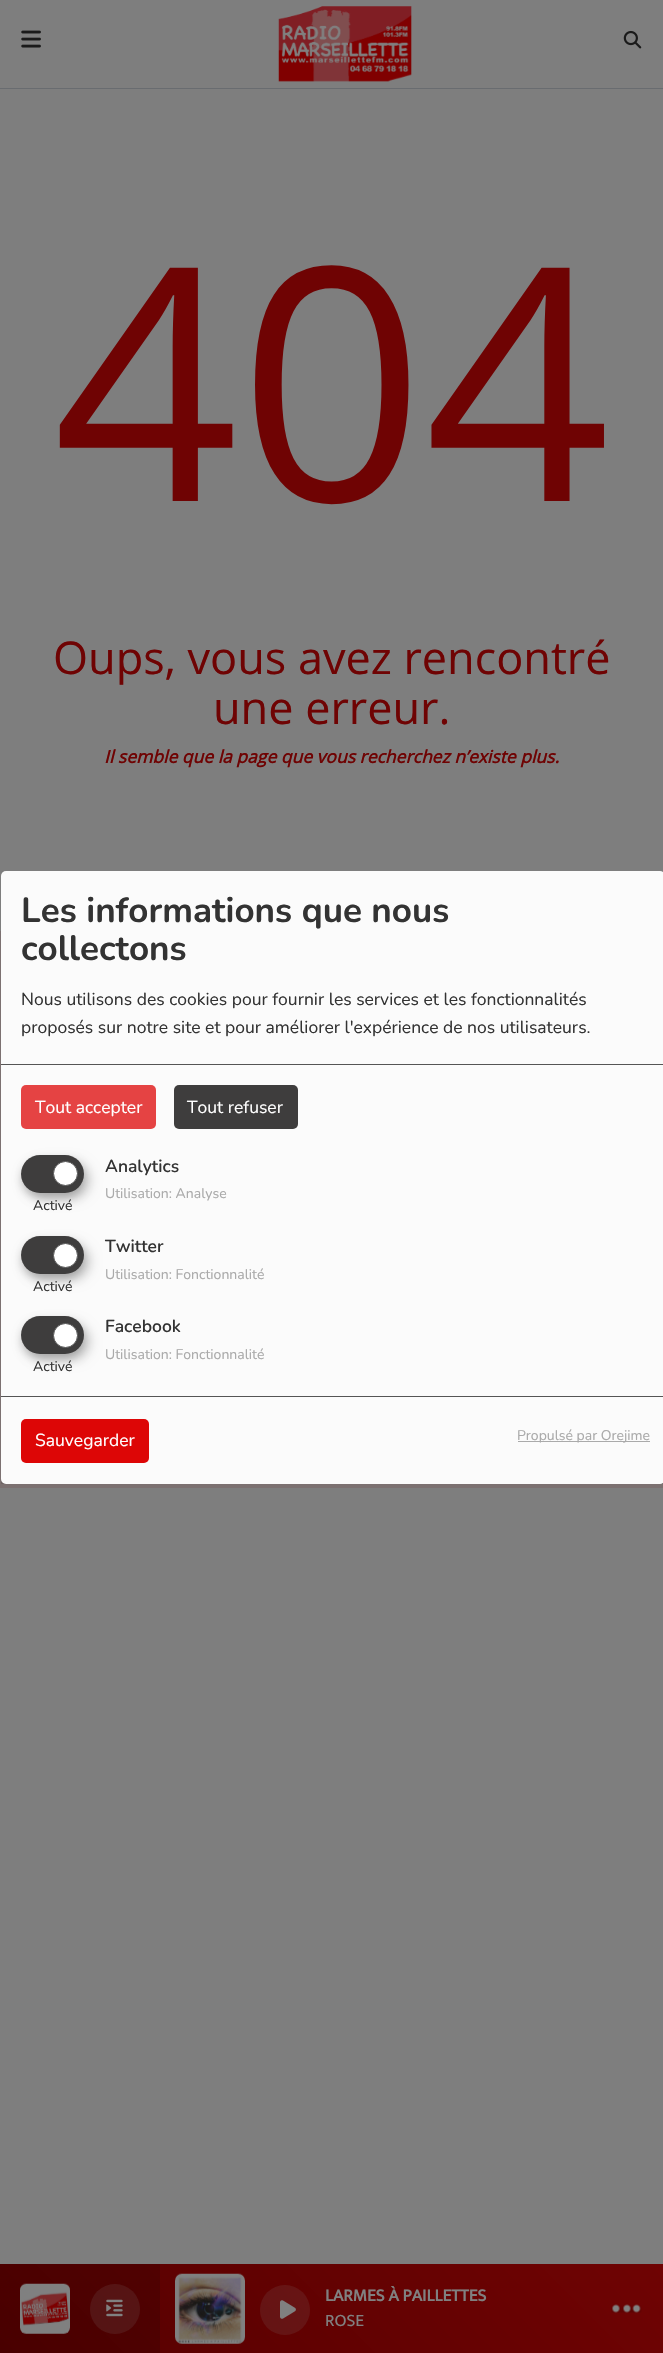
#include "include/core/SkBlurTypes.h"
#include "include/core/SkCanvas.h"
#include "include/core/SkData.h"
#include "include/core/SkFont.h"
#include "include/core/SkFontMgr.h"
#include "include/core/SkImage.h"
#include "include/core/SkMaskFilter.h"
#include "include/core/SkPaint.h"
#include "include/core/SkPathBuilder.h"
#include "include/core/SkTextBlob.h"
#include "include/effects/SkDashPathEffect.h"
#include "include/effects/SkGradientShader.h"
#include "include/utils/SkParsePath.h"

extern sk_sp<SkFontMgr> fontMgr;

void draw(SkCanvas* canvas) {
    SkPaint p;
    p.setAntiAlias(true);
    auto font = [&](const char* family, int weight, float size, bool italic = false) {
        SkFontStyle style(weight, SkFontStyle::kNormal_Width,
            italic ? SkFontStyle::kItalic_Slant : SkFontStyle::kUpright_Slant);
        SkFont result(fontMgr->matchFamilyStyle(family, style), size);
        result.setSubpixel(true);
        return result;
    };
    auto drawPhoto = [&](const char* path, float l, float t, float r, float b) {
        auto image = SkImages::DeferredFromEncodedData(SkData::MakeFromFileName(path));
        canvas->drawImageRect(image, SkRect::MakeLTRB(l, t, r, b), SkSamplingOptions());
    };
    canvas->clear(0xFF7E7E7E);
    auto font1 = font("Open Sans", 400, 325);
    p.setColor(0xFF6F0303);
    canvas->drawString("404", 53, 501, font1, p);
    auto font2 = font("Open Sans", 400, 45);
    canvas->drawString("Oups, vous avez rencontré", 53, 674, font2, p);
    canvas->drawString("une erreur.", 213, 724, font2, p);
    auto font3 = font("Open Sans", 700, 17.5f, true);
    canvas->drawString("Il semble que la page que vous recherchez n’existe plus.", 104, 763, font3, p);
    p.setColor(0xFF7C7171);
    canvas->drawRect(SkRect::MakeLTRB(0, 931, 663, 1488), p);
    canvas->save();
    canvas->clipRect(SkRect::MakeLTRB(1, 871, 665, 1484));
    p.setColor(0x30000000);
    p.setMaskFilter(SkMaskFilter::MakeBlur(kNormal_SkBlurStyle, 6));
    canvas->drawRoundRect(SkRect::MakeLTRB(8, 878, 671, 1490), 5, 5, p);
    p.setMaskFilter(nullptr);
    p.setColor(0x33000000);
    p.setMaskFilter(SkMaskFilter::MakeBlur(kNormal_SkBlurStyle, 4));
    canvas->drawRoundRect(SkRect::MakeLTRB(1, 876, 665, 1489), 5, 5, p);
    p.setMaskFilter(nullptr);
    canvas->restore();
    p.setColor(0xFFFBFBFB);
    canvas->drawRoundRect(SkRect::MakeLTRB(1, 871, 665, 1484), 5, 5, p);
    p.setColor(0xFF555555);
    canvas->drawRect(SkRect::MakeLTRB(1, 1064, 663, 1065), p);
    auto font4 = font("Nunito", 700, 35);
    p.setColor(0xFF333333);
    canvas->drawString("Les informations que nous", 21, 922, font4, p);
    canvas->drawString("collectons", 21, 960, font4, p);
    auto font5 = font("Nunito", 400, 17.5f);
    canvas->drawString("Nous utilisons des cookies pour fournir les services et les fonctionnalités", 21, 1005, font5, p);
    canvas->drawString("proposés sur notre site et pour améliorer l'expérience de nos utilisateurs.", 21, 1033, font5, p);
    p.setColor(0xFFE54343);
    canvas->drawRoundRect(SkRect::MakeLTRB(21, 1085, 156, 1129), 5, 5, p);
    p.setColor(0xFFFFFFFF);
    canvas->drawString("Tout accepter", 35, 1113, font5, p);
    p.setColor(0xFF3E3D3D);
    canvas->drawRoundRect(SkRect::MakeLTRB(174, 1085, 298, 1129), 5, 5, p);
    p.setColor(0xFFFFFFFF);
    canvas->drawString("Tout refuser", 187, 1113, font5, p);
    auto font6 = font("Nunito", 600, 17.5f);
    p.setColor(0xFF333333);
    canvas->drawString("Analytics", 105, 1172, font6, p);
    p.setColor(0x30000000);
    p.setMaskFilter(SkMaskFilter::MakeBlur(kNormal_SkBlurStyle, 6));
    canvas->drawRoundRect(SkRect::MakeLTRB(28, 1161, 90, 1199), 19, 19, p);
    p.setMaskFilter(nullptr);
    p.setColor(0x33000000);
    p.setMaskFilter(SkMaskFilter::MakeBlur(kNormal_SkBlurStyle, 4));
    canvas->drawRoundRect(SkRect::MakeLTRB(21, 1160, 84, 1198), 19, 19, p);
    p.setMaskFilter(nullptr);
    p.setColor(0xFF3E3D3D);
    canvas->drawRoundRect(SkRect::MakeLTRB(21, 1155, 84, 1193), 19, 19, p);
    p.setColor(0xFFFFFFFF);
    canvas->drawCircle(65.5f, 1173.5f, 12, p);
    p.setStyle(SkPaint::kStroke_Style);
    p.setStrokeWidth(1);
    p.setColor(0xFF555555);
    canvas->drawCircle(65.5f, 1173.5f, 12, p);
    auto font7 = font("Nunito", 400, 14);
    p.setStyle(SkPaint::kFill_Style);
    p.setColor(0xFF333333);
    canvas->drawString("Activé", 33, 1210, font7, p);
    p.setColor(0xFFAAAAAA);
    canvas->drawString("Utilisation: Analyse", 105, 1198, font7, p);
    p.setColor(0xFF333333);
    canvas->drawString("Twitter", 105, 1252, font6, p);
    p.setColor(0x30000000);
    p.setMaskFilter(SkMaskFilter::MakeBlur(kNormal_SkBlurStyle, 6));
    canvas->drawRoundRect(SkRect::MakeLTRB(28, 1243, 90, 1280), 18.5f, 18.5f, p);
    p.setMaskFilter(nullptr);
    p.setColor(0x33000000);
    p.setMaskFilter(SkMaskFilter::MakeBlur(kNormal_SkBlurStyle, 4));
    canvas->drawRoundRect(SkRect::MakeLTRB(21, 1241, 84, 1279), 19, 19, p);
    p.setMaskFilter(nullptr);
    p.setColor(0xFF3E3D3D);
    canvas->drawRoundRect(SkRect::MakeLTRB(21, 1236, 84, 1274), 19, 19, p);
    p.setColor(0xFFFFFFFF);
    canvas->drawCircle(65.5f, 1255.5f, 12, p);
    p.setStyle(SkPaint::kStroke_Style);
    p.setColor(0xFF555555);
    canvas->drawCircle(65.5f, 1255.5f, 12, p);
    p.setStyle(SkPaint::kFill_Style);
    p.setColor(0xFF333333);
    canvas->drawString("Activé", 33, 1291, font7, p);
    p.setColor(0xFFAAAAAA);
    canvas->drawString("Utilisation: Fonctionnalité", 105, 1279, font7, p);
    p.setColor(0xFF333333);
    canvas->drawString("Facebook", 105, 1332, font6, p);
    p.setColor(0x30000000);
    p.setMaskFilter(SkMaskFilter::MakeBlur(kNormal_SkBlurStyle, 6));
    canvas->drawRoundRect(SkRect::MakeLTRB(28, 1323, 90, 1360), 18.5f, 18.5f, p);
    p.setMaskFilter(nullptr);
    p.setColor(0x33000000);
    p.setMaskFilter(SkMaskFilter::MakeBlur(kNormal_SkBlurStyle, 4));
    canvas->drawRoundRect(SkRect::MakeLTRB(21, 1321, 84, 1359), 19, 19, p);
    p.setMaskFilter(nullptr);
    p.setColor(0xFF3E3D3D);
    canvas->drawRoundRect(SkRect::MakeLTRB(21, 1316, 84, 1354), 19, 19, p);
    p.setColor(0xFFFFFFFF);
    canvas->drawCircle(65.5f, 1335.5f, 12, p);
    p.setStyle(SkPaint::kStroke_Style);
    p.setColor(0xFF555555);
    canvas->drawCircle(65.5f, 1335.5f, 12, p);
    p.setStyle(SkPaint::kFill_Style);
    p.setColor(0xFF333333);
    canvas->drawString("Activé", 33, 1371, font7, p);
    p.setColor(0xFFAAAAAA);
    canvas->drawString("Utilisation: Fonctionnalité", 105, 1359, font7, p);
    p.setColor(0xFF555555);
    canvas->drawRect(SkRect::MakeLTRB(1, 1396, 663, 1397), p);
    p.setColor(0xFFDD0606);
    canvas->drawRoundRect(SkRect::MakeLTRB(21, 1419, 149, 1463), 5, 5, p);
    p.setColor(0xFFFFFFFF);
    canvas->drawString("Sauvegarder", 35, 1446, font5, p);
    p.setColor(0xFFAAAAAA);
    canvas->drawRect(SkRect::MakeLTRB(518, 1441, 650, 1442), p);
    canvas->drawString("Propulsé par Orejime", 517, 1440, font7, p);
    p.setColor(0xFF696C70);
    canvas->drawRect(SkRect::MakeLTRB(0, 88, 663, 89), p);
    drawPhoto("media/1.png", 21, 30, 41, 48);
    drawPhoto("media/2.png", 278, 6, 412, 82);
    drawPhoto("media/3.png", 623, 30, 642, 49);
    {
        const SkColor colors[] = {0xFF6F0303, 0xFF560000};
        const float stops[] = {0, 1};
        const SkPoint ends[] = {{520, 2120}, {143, 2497}};
        p.setShader(SkGradientShader::MakeLinear(ends, colors, stops, 2, SkTileMode::kClamp));
        p.setAlpha(255);
    }
    canvas->drawRect(SkRect::MakeLTRB(160, 2264, 663, 2353), p);
    {
        const SkColor colors[] = {0xFF5E0303, 0xFF490000};
        const float stops[] = {0, 1};
        const SkPoint ends[] = {{520, 2120}, {143, 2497}};
        p.setShader(SkGradientShader::MakeLinear(ends, colors, stops, 2, SkTileMode::kClamp));
        p.setAlpha(255);
    }
    canvas->drawRect(SkRect::MakeLTRB(0, 2264, 160, 2353), p);
    drawPhoto("media/4.png", 20, 2283, 70, 2334);
    p.setShader(nullptr);
    p.setColor(0x26808080);
    canvas->drawCircle(115, 2309, 25, p);
    drawPhoto("media/5.png", 106, 2299, 123, 2317);
    drawPhoto("media/6.png", 175, 2273, 245, 2344);
    canvas->drawCircle(285, 2310, 25, p);
    drawPhoto("media/7.png", 280, 2300, 296, 2319);
    auto font8 = font("Mukta", 700, 17.5f);
    p.setColor(0xFF808080);
    canvas->drawString("LARMES À PAILLETTES", 325, 2301, font8, p);
    auto font9 = font("Mukta", 400, 17.5f);
    canvas->drawString("ROSE", 325, 2326, font9, p);
    drawPhoto("media/8.png", 611, 2304, 642, 2313);
}
